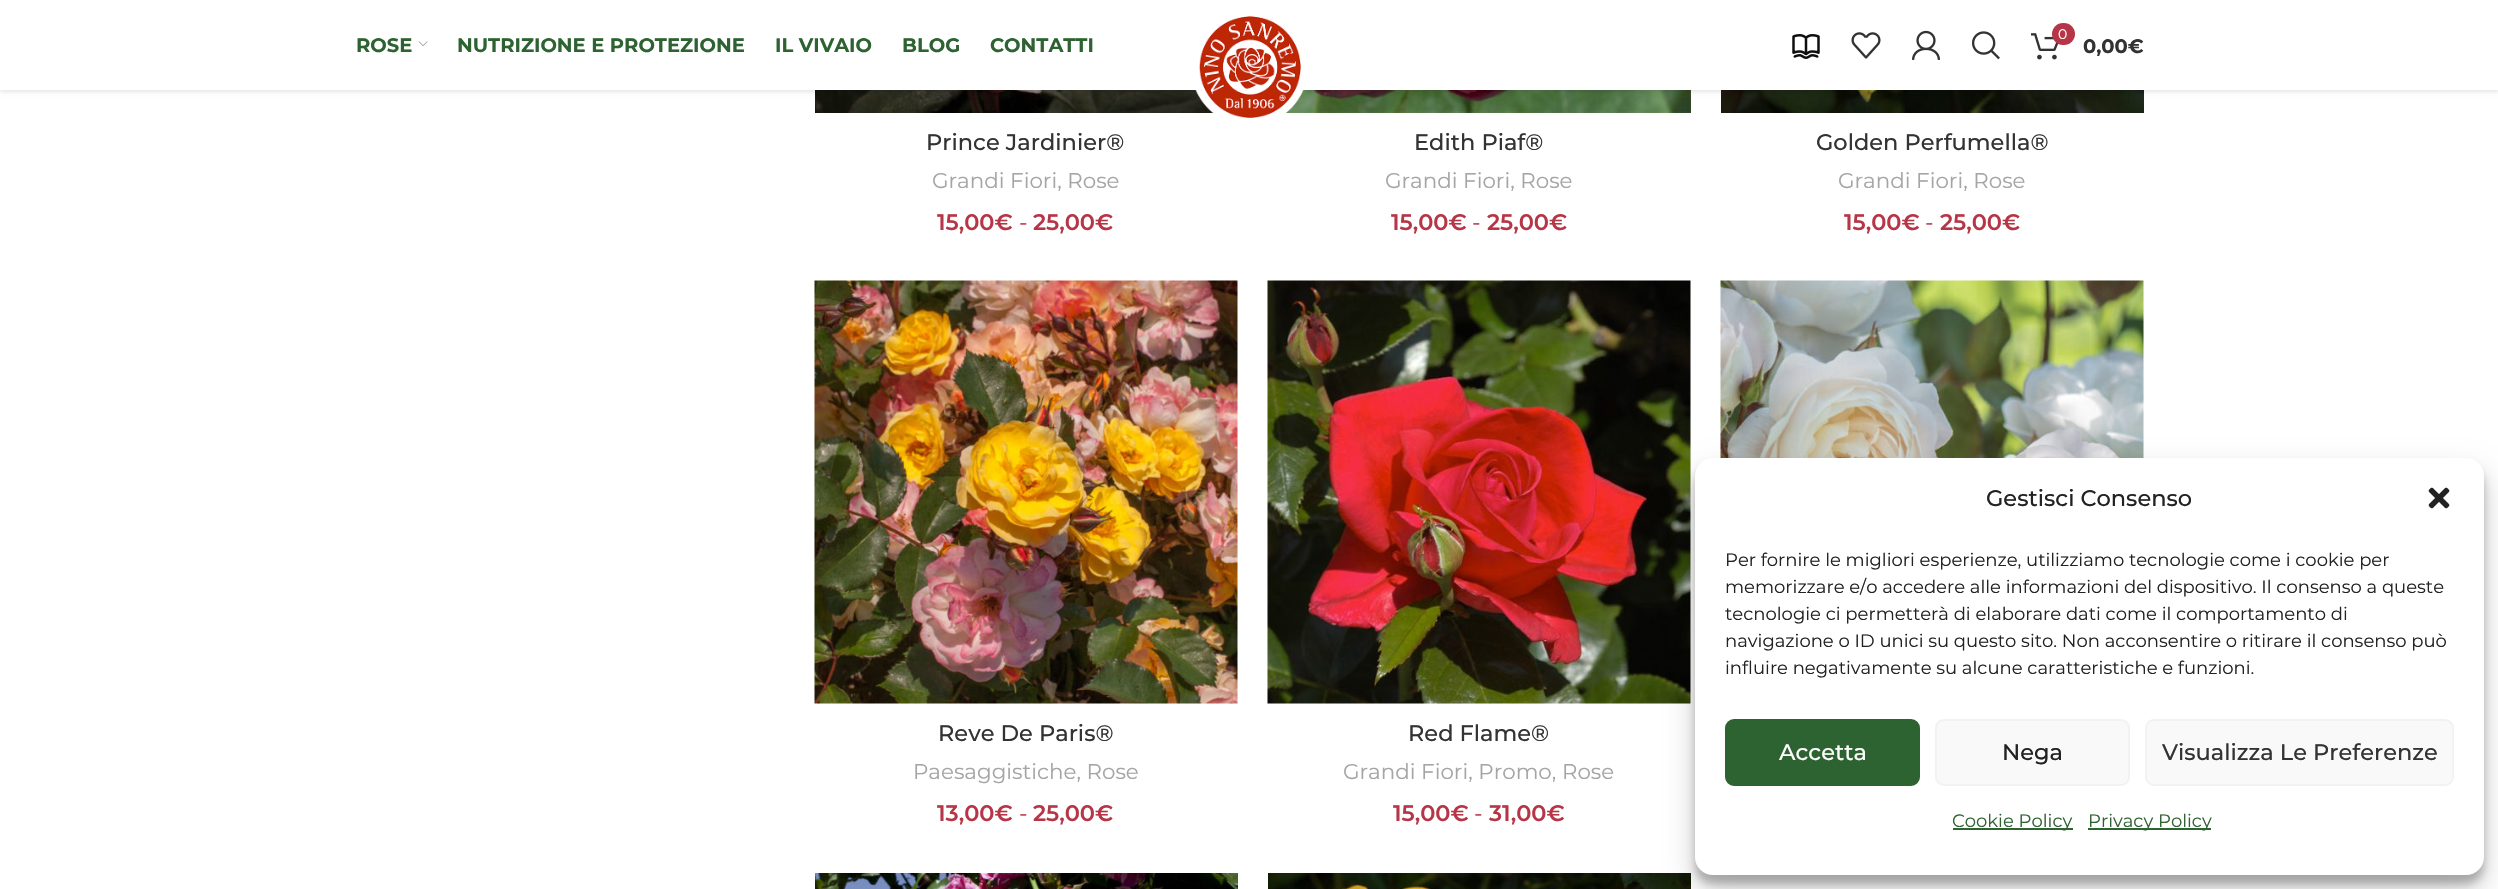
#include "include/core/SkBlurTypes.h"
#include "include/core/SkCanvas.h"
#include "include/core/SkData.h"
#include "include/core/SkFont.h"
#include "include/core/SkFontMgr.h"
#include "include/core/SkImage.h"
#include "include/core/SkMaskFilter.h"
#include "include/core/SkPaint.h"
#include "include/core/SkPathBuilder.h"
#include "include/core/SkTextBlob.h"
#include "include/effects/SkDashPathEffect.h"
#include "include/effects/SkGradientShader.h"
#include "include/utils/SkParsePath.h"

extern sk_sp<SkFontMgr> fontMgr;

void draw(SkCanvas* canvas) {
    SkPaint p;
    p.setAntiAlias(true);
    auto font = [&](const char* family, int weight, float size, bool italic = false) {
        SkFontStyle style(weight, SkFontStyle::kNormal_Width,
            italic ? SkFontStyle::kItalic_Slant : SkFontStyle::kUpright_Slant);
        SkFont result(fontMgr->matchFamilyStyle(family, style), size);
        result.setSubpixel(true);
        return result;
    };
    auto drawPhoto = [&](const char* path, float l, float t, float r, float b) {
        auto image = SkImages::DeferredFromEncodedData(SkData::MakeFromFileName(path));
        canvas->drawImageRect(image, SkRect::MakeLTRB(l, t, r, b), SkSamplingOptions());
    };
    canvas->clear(0xFFFFFFFF);
    drawPhoto("media/8.png", 815, 90, 1215, 113);
    drawPhoto("media/9.png", 1284, 90, 1691, 113);
    drawPhoto("media/10.png", 1721, 90, 2144, 113);
    p.setColor(0x1A000000);
    p.setMaskFilter(SkMaskFilter::MakeBlur(kNormal_SkBlurStyle, 2));
    canvas->drawRect(SkRect::MakeLTRB(0, 2, 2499, 92), p);
    p.setMaskFilter(nullptr);
    p.setColor(0xFFFFFFFF);
    canvas->drawRect(SkRect::MakeLTRB(0, 0, 2498, 90), p);
    auto font1 = font("Montserrat", 700, 19.5f);
    p.setColor(0xFF2D6231);
    canvas->drawString("ROSE", 356, 52, font1, p);
    drawPhoto("media/1.png", 418, 41, 428, 47);
    {
        const struct { const char* s; float x, y; } items[] = {
            {"NUTRIZIONE E PROTEZIONE", 457, 52},
            {"IL VIVAIO", 775, 52},
            {"BLOG", 902, 52},
            {"CONTATTI", 990, 52},
        };
        for (auto [s, x, y] : items) {
            canvas->drawString(s, x, y, font1, p);
        }
    }
    drawPhoto("media/2.png", 1195, 16, 1304, 118);
    drawPhoto("media/3.png", 1792, 34, 1820, 59);
    drawPhoto("media/4.png", 1851, 32, 1881, 59);
    drawPhoto("media/5.png", 1912, 30, 1940, 60);
    drawPhoto("media/6.png", 1972, 31, 2000, 60);
    drawPhoto("media/7.png", 2031, 33, 2059, 60);
    p.setColor(0xFFB63546);
    canvas->drawRoundRect(SkRect::MakeLTRB(2052, 23, 2075, 45), 11, 11, p);
    auto font2 = font("Montserrat", 400, 14);
    p.setColor(0xFFFFFFFF);
    canvas->drawString("0", 2058, 39, font2, p);
    p.setColor(0xFF333333);
    canvas->drawString("0,00€", 2083, 53, font1, p);
    auto font3 = font("Montserrat", 500, 22.5f);
    canvas->drawString("Prince Jardinier®", 926, 150, font3, p);
    auto font4 = font("Montserrat", 400, 21.4f);
    p.setColor(0xFFA5A5A5);
    canvas->drawString("Grandi Fiori, Rose", 932, 188, font4, p);
    auto font5 = font("Montserrat", 600, 22.5f);
    p.setColor(0xFFB63546);
    canvas->drawString("15,00€", 937, 230, font5, p);
    auto font6 = font("Montserrat", 400, 22.5f);
    canvas->drawString("-", 1019, 230, font6, p);
    canvas->drawString("25,00€", 1033, 230, font5, p);
    p.setColor(0xFF333333);
    canvas->drawString("Edith Piaf®", 1414, 150, font3, p);
    p.setColor(0xFFA5A5A5);
    canvas->drawString("Grandi Fiori, Rose", 1385, 188, font4, p);
    p.setColor(0xFFB63546);
    canvas->drawString("15,00€", 1391, 230, font5, p);
    canvas->drawString("-", 1472, 230, font6, p);
    canvas->drawString("25,00€", 1487, 230, font5, p);
    p.setColor(0xFF333333);
    canvas->drawString("Golden Perfumella®", 1816, 150, font3, p);
    p.setColor(0xFFA5A5A5);
    canvas->drawString("Grandi Fiori, Rose", 1838, 188, font4, p);
    p.setColor(0xFFB63546);
    canvas->drawString("15,00€", 1844, 230, font5, p);
    canvas->drawString("-", 1925, 230, font6, p);
    canvas->drawString("25,00€", 1940, 230, font5, p);
    drawPhoto("media/11.png", 1720, 280, 2144, 458);
    drawPhoto("media/12.png", 814, 280, 1238, 704);
    p.setColor(0xFF333333);
    canvas->drawString("Reve De Paris®", 938, 741, font3, p);
    p.setColor(0xFFA5A5A5);
    canvas->drawString("Paesaggistiche, Rose", 913, 779, font4, p);
    p.setColor(0xFFB63546);
    canvas->drawString("13,00€", 937, 821, font5, p);
    canvas->drawString("-", 1019, 821, font6, p);
    canvas->drawString("25,00€", 1033, 821, font5, p);
    drawPhoto("media/13.png", 1267, 280, 1691, 704);
    p.setColor(0xFF333333);
    canvas->drawString("Red Flame®", 1408, 741, font3, p);
    p.setColor(0xFFA5A5A5);
    canvas->drawString("Grandi Fiori, Promo, Rose", 1343, 779, font4, p);
    p.setColor(0xFFB63546);
    canvas->drawString("15,00€", 1393, 821, font5, p);
    canvas->drawString("-", 1474, 821, font6, p);
    canvas->drawString("31,00€", 1489, 821, font5, p);
    drawPhoto("media/14.png", 815, 873, 1238, 889);
    drawPhoto("media/15.png", 1268, 873, 1691, 889);
    p.setColor(0x3B000000);
    p.setMaskFilter(SkMaskFilter::MakeBlur(kNormal_SkBlurStyle, 4.5f));
    canvas->drawRoundRect(SkRect::MakeLTRB(1695, 467, 2484, 884), 18, 18, p);
    p.setMaskFilter(nullptr);
    p.setColor(0x30000000);
    p.setMaskFilter(SkMaskFilter::MakeBlur(kNormal_SkBlurStyle, 15));
    canvas->drawRoundRect(SkRect::MakeLTRB(1695, 473, 2484, 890), 18, 18, p);
    p.setMaskFilter(nullptr);
    p.setColor(0xFFFFFFFF);
    canvas->drawRoundRect(SkRect::MakeLTRB(1695, 458, 2484, 875), 18, 18, p);
    p.setColor(0xFF222222);
    canvas->drawString("Gestisci Consenso", 1986, 506, font3, p);
    drawPhoto("media/16.png", 2428, 487, 2450, 509);
    auto font7 = font("Montserrat", 400, 18);
    {
        const struct { const char* s; float x, y; } items[] = {
            {"Per fornire le migliori esperienze, utilizziamo tecnologie come i cookie per", 1725, 566},
            {"memorizzare e/o accedere alle informazioni del dispositivo. Il consenso a queste", 1725, 593},
            {"tecnologie ci permetterà di elaborare dati come il comportamento di", 1725, 620},
            {"navigazione o ID unici su questo sito. Non acconsentire o ritirare il consenso può", 1725, 647},
            {"influire negativamente su alcune caratteristiche e funzioni.", 1725, 674},
        };
        for (auto [s, x, y] : items) {
            canvas->drawString(s, x, y, font7, p);
        }
    }
    p.setColor(0xFF2D6231);
    canvas->drawRoundRect(SkRect::MakeLTRB(1726, 720, 1919, 785), 8, 8, p);
    p.setStyle(SkPaint::kStroke_Style);
    p.setStrokeWidth(2);
    canvas->drawRoundRect(SkRect::MakeLTRB(1726, 720, 1919, 785), 8, 8, p);
    p.setStyle(SkPaint::kFill_Style);
    p.setColor(0xFFFFFFFF);
    canvas->drawString("Accetta", 1779, 760, font3, p);
    p.setColor(0xFFF9F9F9);
    canvas->drawRoundRect(SkRect::MakeLTRB(1936, 720, 2129, 785), 8, 8, p);
    p.setStyle(SkPaint::kStroke_Style);
    p.setColor(0xFFF2F2F2);
    canvas->drawRoundRect(SkRect::MakeLTRB(1936, 720, 2129, 785), 8, 8, p);
    p.setStyle(SkPaint::kFill_Style);
    p.setColor(0xFF222222);
    canvas->drawString("Nega", 2002, 760, font3, p);
    p.setColor(0xFFF9F9F9);
    canvas->drawRoundRect(SkRect::MakeLTRB(2146, 720, 2453, 785), 8, 8, p);
    p.setStyle(SkPaint::kStroke_Style);
    p.setColor(0xFFF2F2F2);
    canvas->drawRoundRect(SkRect::MakeLTRB(2146, 720, 2453, 785), 8, 8, p);
    p.setStyle(SkPaint::kFill_Style);
    p.setColor(0xFF333333);
    canvas->drawString("Visualizza Le Preferenze", 2162, 760, font3, p);
    p.setColor(0xFF2D6231);
    canvas->drawRect(SkRect::MakeLTRB(1953, 828, 2073, 830), p);
    canvas->drawString("Cookie Policy", 1952, 827, font7, p);
    canvas->drawRect(SkRect::MakeLTRB(2088, 828, 2211, 830), p);
    canvas->drawString("Privacy Policy", 2088, 827, font7, p);
}
